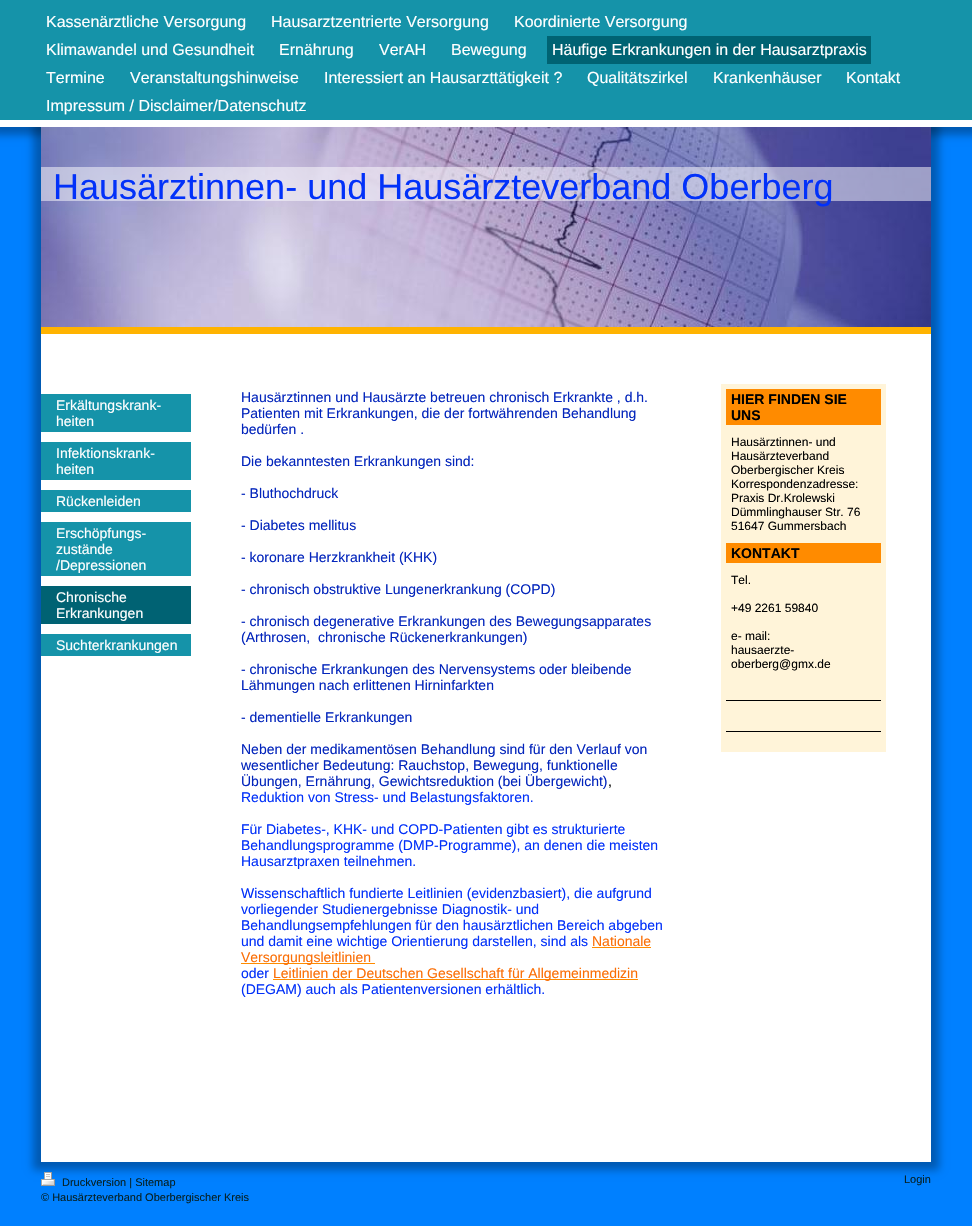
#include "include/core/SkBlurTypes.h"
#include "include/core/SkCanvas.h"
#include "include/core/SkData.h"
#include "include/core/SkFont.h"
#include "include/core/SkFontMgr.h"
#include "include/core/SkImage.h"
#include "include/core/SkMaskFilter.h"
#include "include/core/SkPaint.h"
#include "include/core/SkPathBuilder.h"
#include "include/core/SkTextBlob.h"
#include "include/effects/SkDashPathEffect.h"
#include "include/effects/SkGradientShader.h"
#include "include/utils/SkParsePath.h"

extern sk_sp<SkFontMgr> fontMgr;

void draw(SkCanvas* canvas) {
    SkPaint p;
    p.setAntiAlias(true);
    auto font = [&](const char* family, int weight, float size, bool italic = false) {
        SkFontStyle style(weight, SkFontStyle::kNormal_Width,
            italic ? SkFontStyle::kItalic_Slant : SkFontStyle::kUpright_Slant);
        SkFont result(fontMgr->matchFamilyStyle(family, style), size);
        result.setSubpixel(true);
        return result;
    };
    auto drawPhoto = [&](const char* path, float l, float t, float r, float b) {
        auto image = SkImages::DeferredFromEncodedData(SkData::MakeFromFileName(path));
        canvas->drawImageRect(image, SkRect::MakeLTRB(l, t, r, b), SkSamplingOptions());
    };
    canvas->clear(0xFF0080FF);
    p.setColor(0x4D000000);
    p.setMaskFilter(SkMaskFilter::MakeBlur(kNormal_SkBlurStyle, 4));
    canvas->drawRect(SkRect::MakeLTRB(-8, -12, 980, 135), p);
    p.setMaskFilter(nullptr);
    p.setMaskFilter(SkMaskFilter::MakeBlur(kNormal_SkBlurStyle, 4));
    canvas->drawRect(SkRect::MakeLTRB(33, 119, 939, 1170), p);
    p.setMaskFilter(nullptr);
    p.setColor(0xFF1593A9);
    canvas->drawRect(SkRect::MakeLTRB(0, 0, 972, 120), p);
    p.setColor(0xFFFFFFFF);
    canvas->drawRect(SkRect::MakeLTRB(0, 120, 972, 127), p);
    auto font1 = font("Liberation Sans", 400, 16);
    {
        const struct { const char* s; float x, y; } items[] = {
            {"Kassenärztliche Versorgung", 46, 27},
            {"Hausarztzentrierte Versorgung", 271, 27},
            {"Koordinierte Versorgung", 514, 27},
            {"Klimawandel und Gesundheit", 46, 55},
            {"Ernährung", 279, 55},
            {"VerAH", 379, 55},
            {"Bewegung", 451, 55},
        };
        for (auto [s, x, y] : items) {
            canvas->drawString(s, x, y, font1, p);
        }
    }
    p.setColor(0xFF006373);
    canvas->drawRect(SkRect::MakeLTRB(547, 36, 871, 64), p);
    p.setColor(0xFFFFFFFF);
    {
        const struct { const char* s; float x, y; } items[] = {
            {"Häufige Erkrankungen in der Hausarztpraxis", 552, 55},
            {"Termine", 46, 83},
            {"Veranstaltungshinweise", 130, 83},
            {"Interessiert an Hausarzttätigkeit ?", 324, 83},
            {"Qualitätszirkel", 587, 83},
            {"Krankenhäuser", 713, 83},
            {"Kontakt", 846, 83},
            {"Impressum / Disclaimer/Datenschutz", 46, 111},
        };
        for (auto [s, x, y] : items) {
            canvas->drawString(s, x, y, font1, p);
        }
    }
    canvas->drawRect(SkRect::MakeLTRB(41, 334, 931, 1162), p);
    p.setColor(0xFFFFB300);
    canvas->drawRect(SkRect::MakeLTRB(41, 327, 931, 334), p);
    drawPhoto("media/1.png", 41, 127, 931, 327);
    p.setColor(0x80FFFFFF);
    canvas->drawRect(SkRect::MakeLTRB(41, 167, 931, 201), p);
    auto font2 = font("Liberation Sans", 400, 36);
    p.setColor(0xFF0231F9);
    canvas->drawString("Hausärztinnen- und Hausärzteverband Oberberg", 53, 199, font2, p);
    p.setColor(0xFF1593A9);
    canvas->drawRect(SkRect::MakeLTRB(41, 394, 191, 432), p);
    auto font3 = font("Liberation Sans", 400, 14);
    p.setColor(0xFFFFFFFF);
    canvas->drawString("Erkältungskrank-", 56, 410, font3, p);
    canvas->drawString("heiten", 56, 426, font3, p);
    p.setColor(0xFF1593A9);
    canvas->drawRect(SkRect::MakeLTRB(41, 442, 191, 480), p);
    p.setColor(0xFFFFFFFF);
    canvas->drawString("Infektionskrank-", 56, 458, font3, p);
    canvas->drawString("heiten", 56, 474, font3, p);
    p.setColor(0xFF1593A9);
    canvas->drawRect(SkRect::MakeLTRB(41, 490, 191, 512), p);
    p.setColor(0xFFFFFFFF);
    canvas->drawString("Rückenleiden", 56, 506, font3, p);
    p.setColor(0xFF1593A9);
    canvas->drawRect(SkRect::MakeLTRB(41, 522, 191, 576), p);
    p.setColor(0xFFFFFFFF);
    {
        const struct { const char* s; float x, y; } items[] = {
            {"Erschöpfungs-", 56, 538},
            {"zustände", 56, 554},
            {"/Depressionen", 56, 570},
        };
        for (auto [s, x, y] : items) {
            canvas->drawString(s, x, y, font3, p);
        }
    }
    p.setColor(0xFF006273);
    canvas->drawRect(SkRect::MakeLTRB(41, 586, 191, 624), p);
    p.setColor(0xFFFFFFFF);
    canvas->drawString("Chronische", 56, 602, font3, p);
    canvas->drawString("Erkrankungen", 56, 618, font3, p);
    p.setColor(0xFF1593A9);
    canvas->drawRect(SkRect::MakeLTRB(41, 634, 191, 656), p);
    p.setColor(0xFFFFFFFF);
    canvas->drawString("Suchterkrankungen", 56, 650, font3, p);
    p.setColor(0xFF0325BC);
    {
        const struct { const char* s; float x, y; } items[] = {
            {"Hausärztinnen und Hausärzte betreuen chronisch Erkrankte , d.h.", 241, 402},
            {"Patienten mit Erkrankungen, die der fortwährenden Behandlung", 241, 418},
            {"bedürfen .", 241, 434},
            {"Die bekanntesten Erkrankungen sind:", 241, 466},
            {"- Bluthochdruck", 241, 498},
            {"- Diabetes mellitus", 241, 530},
            {"- koronare Herzkrankheit (KHK)", 241, 562},
            {"- chronisch obstruktive Lungenerkrankung (COPD)", 241, 594},
            {"- chronisch degenerative Erkrankungen des Bewegungsapparates", 241, 626},
            {"(Arthrosen,  chronische Rückenerkrankungen)", 241, 642},
            {"- chronische Erkrankungen des Nervensystems oder bleibende", 241, 674},
            {"Lähmungen nach erlittenen Hirninfarkten", 241, 690},
            {"- dementielle Erkrankungen", 241, 722},
            {"Neben der medikamentösen Behandlung sind für den Verlauf von", 241, 754},
            {"wesentlicher Bedeutung: Rauchstop, Bewegung, funktionelle", 241, 770},
            {"Übungen, Ernährung, Gewichtsreduktion (bei Übergewicht)", 241, 786},
        };
        for (auto [s, x, y] : items) {
            canvas->drawString(s, x, y, font3, p);
        }
    }
    p.setColor(0xFF000000);
    canvas->drawString(",", 608, 786, font3, p);
    p.setColor(0xFF0231F9);
    {
        const struct { const char* s; float x, y; } items[] = {
            {"Reduktion von Stress- und Belastungsfaktoren.", 241, 802},
            {"Für Diabetes-, KHK- und COPD-Patienten gibt es strukturierte", 241, 834},
            {"Behandlungsprogramme (DMP-Programme), an denen die meisten", 241, 850},
            {"Hausarztpraxen teilnehmen.", 241, 866},
            {"Wissenschaftlich fundierte Leitlinien (evidenzbasiert), die aufgrund", 241, 898},
            {"vorliegender Studienergebnisse Diagnostik- und", 241, 914},
            {"Behandlungsempfehlungen für den hausärztlichen Bereich abgeben", 241, 930},
            {"und damit eine wichtige Orientierung darstellen, sind als", 241, 946},
        };
        for (auto [s, x, y] : items) {
            canvas->drawString(s, x, y, font3, p);
        }
    }
    p.setColor(0xFFFB6E05);
    canvas->drawString("Nationale", 592, 946, font3, p);
    p.setColor(0xFFFF8B00);
    canvas->drawRect(SkRect::MakeLTRB(592, 947, 651, 948), p);
    canvas->drawRect(SkRect::MakeLTRB(241, 963, 375, 964), p);
    p.setColor(0xFFFB6E05);
    canvas->drawString("Versorgungsleitlinien", 241, 962, font3, p);
    p.setColor(0xFF0231F9);
    canvas->drawString("oder", 241, 978, font3, p);
    p.setColor(0xFFFF8B00);
    canvas->drawRect(SkRect::MakeLTRB(273, 979, 638, 980), p);
    p.setColor(0xFFFB6E05);
    canvas->drawString("Leitlinien der Deutschen Gesellschaft für Allgemeinmedizin", 273, 978, font3, p);
    p.setColor(0xFF0231F9);
    canvas->drawString("(DEGAM) auch als Patientenversionen erhältlich.", 241, 994, font3, p);
    p.setColor(0xFFFFF4D9);
    canvas->drawRect(SkRect::MakeLTRB(721, 384, 886, 752), p);
    p.setColor(0xFFFF8B00);
    canvas->drawRect(SkRect::MakeLTRB(726, 389, 881, 425), p);
    auto font4 = font("Liberation Sans", 700, 14);
    p.setColor(0xFF000000);
    canvas->drawString("HIER FINDEN SIE", 731, 404, font4, p);
    canvas->drawString("UNS", 731, 420, font4, p);
    auto font5 = font("Liberation Sans", 400, 12);
    {
        const struct { const char* s; float x, y; } items[] = {
            {"Hausärztinnen- und", 731, 446},
            {"Hausärzteverband", 731, 460},
            {"Oberbergischer Kreis", 731, 474},
            {"Korrespondenzadresse:", 731, 488},
            {"Praxis Dr.Krolewski", 731, 502},
            {"Dümmlinghauser Str. 76", 731, 516},
            {"51647 Gummersbach", 731, 530},
        };
        for (auto [s, x, y] : items) {
            canvas->drawString(s, x, y, font5, p);
        }
    }
    p.setColor(0xFFFF8B00);
    canvas->drawRect(SkRect::MakeLTRB(726, 543, 881, 563), p);
    p.setColor(0xFF000000);
    canvas->drawString("KONTAKT", 731, 558, font4, p);
    {
        const struct { const char* s; float x, y; } items[] = {
            {"Tel.", 731, 584},
            {"+49 2261 59840", 731, 612},
            {"e- mail:", 731, 640},
            {"hausaerzte-", 731, 654},
            {"oberberg@gmx.de", 731, 668},
        };
        for (auto [s, x, y] : items) {
            canvas->drawString(s, x, y, font5, p);
        }
    }
    canvas->drawRect(SkRect::MakeLTRB(726, 700, 881, 701), p);
    canvas->drawRect(SkRect::MakeLTRB(726, 731, 881, 732), p);
    drawPhoto("media/2.png", 41, 1172, 55, 1186);
    auto font6 = font("Liberation Sans", 400, 11);
    p.setColor(0xFF052126);
    {
        const struct { const char* s; float x, y; } items[] = {
            {"Druckversion | Sitemap", 62, 1186},
            {"© Hausärzteverband Oberbergischer Kreis", 41, 1201},
            {"Login", 904, 1183},
        };
        for (auto [s, x, y] : items) {
            canvas->drawString(s, x, y, font6, p);
        }
    }
}
